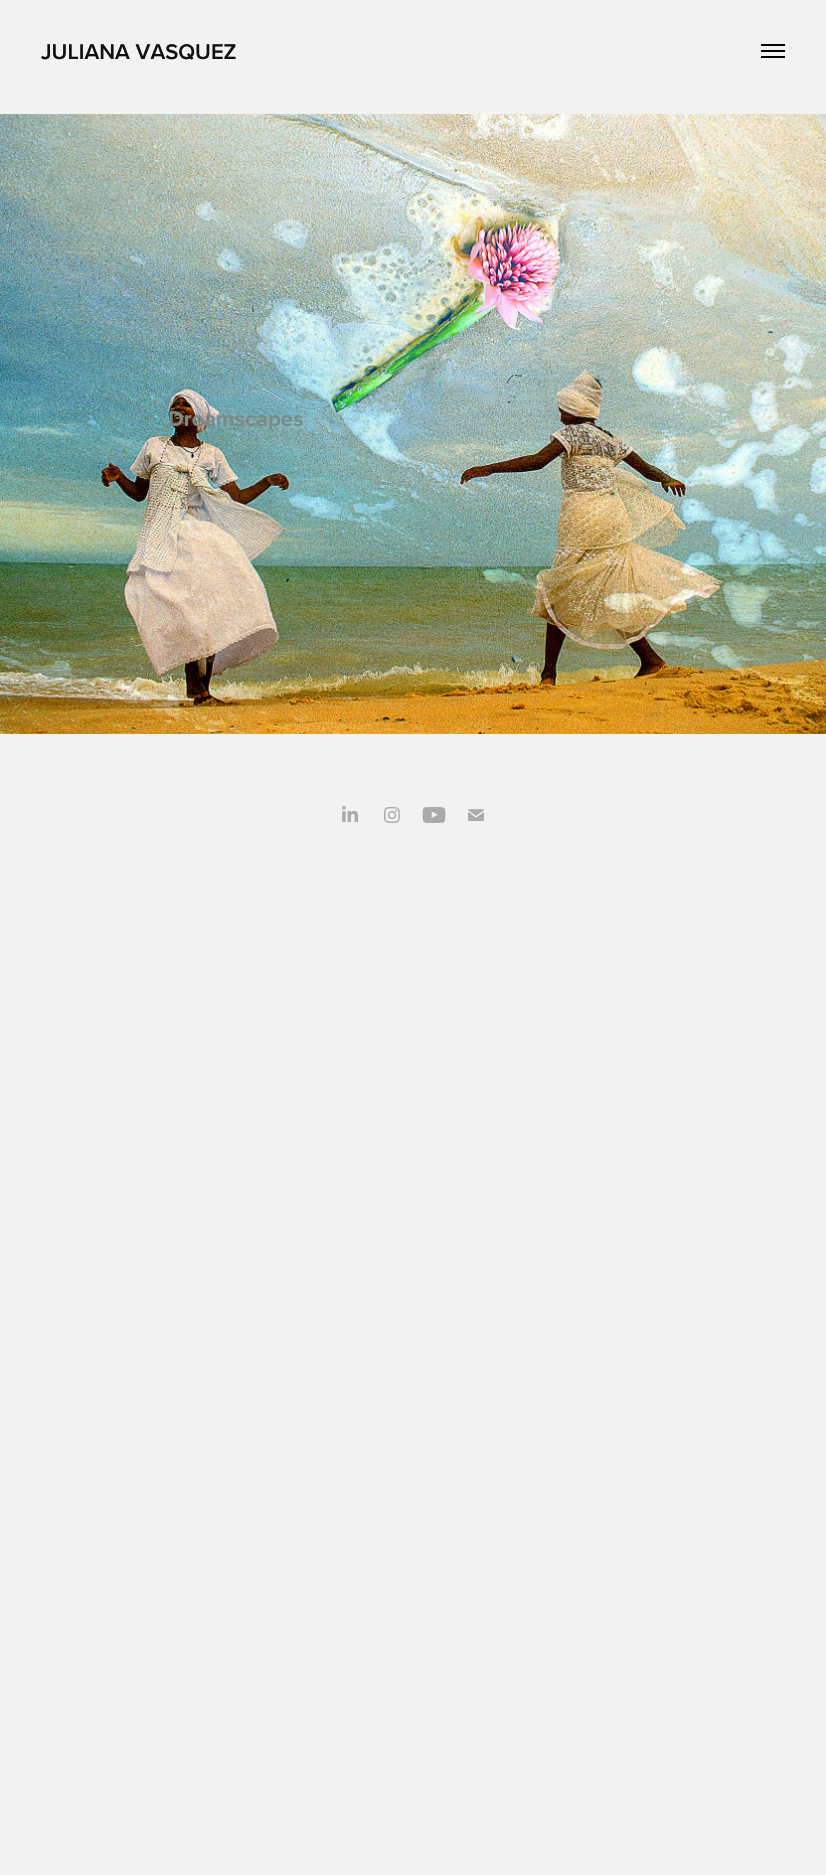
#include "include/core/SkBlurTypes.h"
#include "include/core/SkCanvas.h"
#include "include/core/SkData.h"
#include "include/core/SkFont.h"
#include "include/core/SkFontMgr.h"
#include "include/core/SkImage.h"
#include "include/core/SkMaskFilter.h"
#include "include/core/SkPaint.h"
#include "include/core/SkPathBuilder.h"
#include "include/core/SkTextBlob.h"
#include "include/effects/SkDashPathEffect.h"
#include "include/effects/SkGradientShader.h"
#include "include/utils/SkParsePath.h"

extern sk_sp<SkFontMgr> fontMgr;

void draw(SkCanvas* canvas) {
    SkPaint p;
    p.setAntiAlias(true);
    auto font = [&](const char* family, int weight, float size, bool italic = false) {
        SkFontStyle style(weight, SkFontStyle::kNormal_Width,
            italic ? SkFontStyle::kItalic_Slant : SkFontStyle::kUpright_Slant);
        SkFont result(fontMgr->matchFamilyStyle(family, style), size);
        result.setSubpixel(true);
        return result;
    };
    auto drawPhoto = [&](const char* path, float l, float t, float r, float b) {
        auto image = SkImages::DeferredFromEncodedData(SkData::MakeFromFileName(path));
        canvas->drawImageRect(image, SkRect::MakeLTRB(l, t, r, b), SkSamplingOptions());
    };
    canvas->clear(0xFFF2F2F2);
    auto font1 = font("Proxima Nova", 600, 22);
    p.setColor(0xFF111111);
    canvas->drawString("JULIANA VASQUEZ", 41, 59, font1, p);
    {
        const struct { float l, t, r, b; SkColor color; } items[] = {
            {761, 44, 785, 46, 0xFF000000},
            {761, 50, 785, 52, 0xFF000000},
            {761, 56, 785, 58, 0xFF000000},
        };
        for (auto [l, t, r, b, color] : items) {
            p.setColor(color);
            canvas->drawRect(SkRect::MakeLTRB(l, t, r, b), p);
        }
    }
    drawPhoto("media/1.png", 0, 114, 826, 734);
    auto font2 = font("Proxima Nova", 700, 22);
    p.setColor(0xFF778C8A);
    canvas->drawString("Dreamscapes", 168, 426, font2, p);
    drawPhoto("media/2.png", 342, 806, 358, 822);
    drawPhoto("media/3.png", 384, 807, 400, 823);
    drawPhoto("media/4.png", 422, 807, 446, 823);
    drawPhoto("media/5.png", 468, 809, 484, 821);
}
